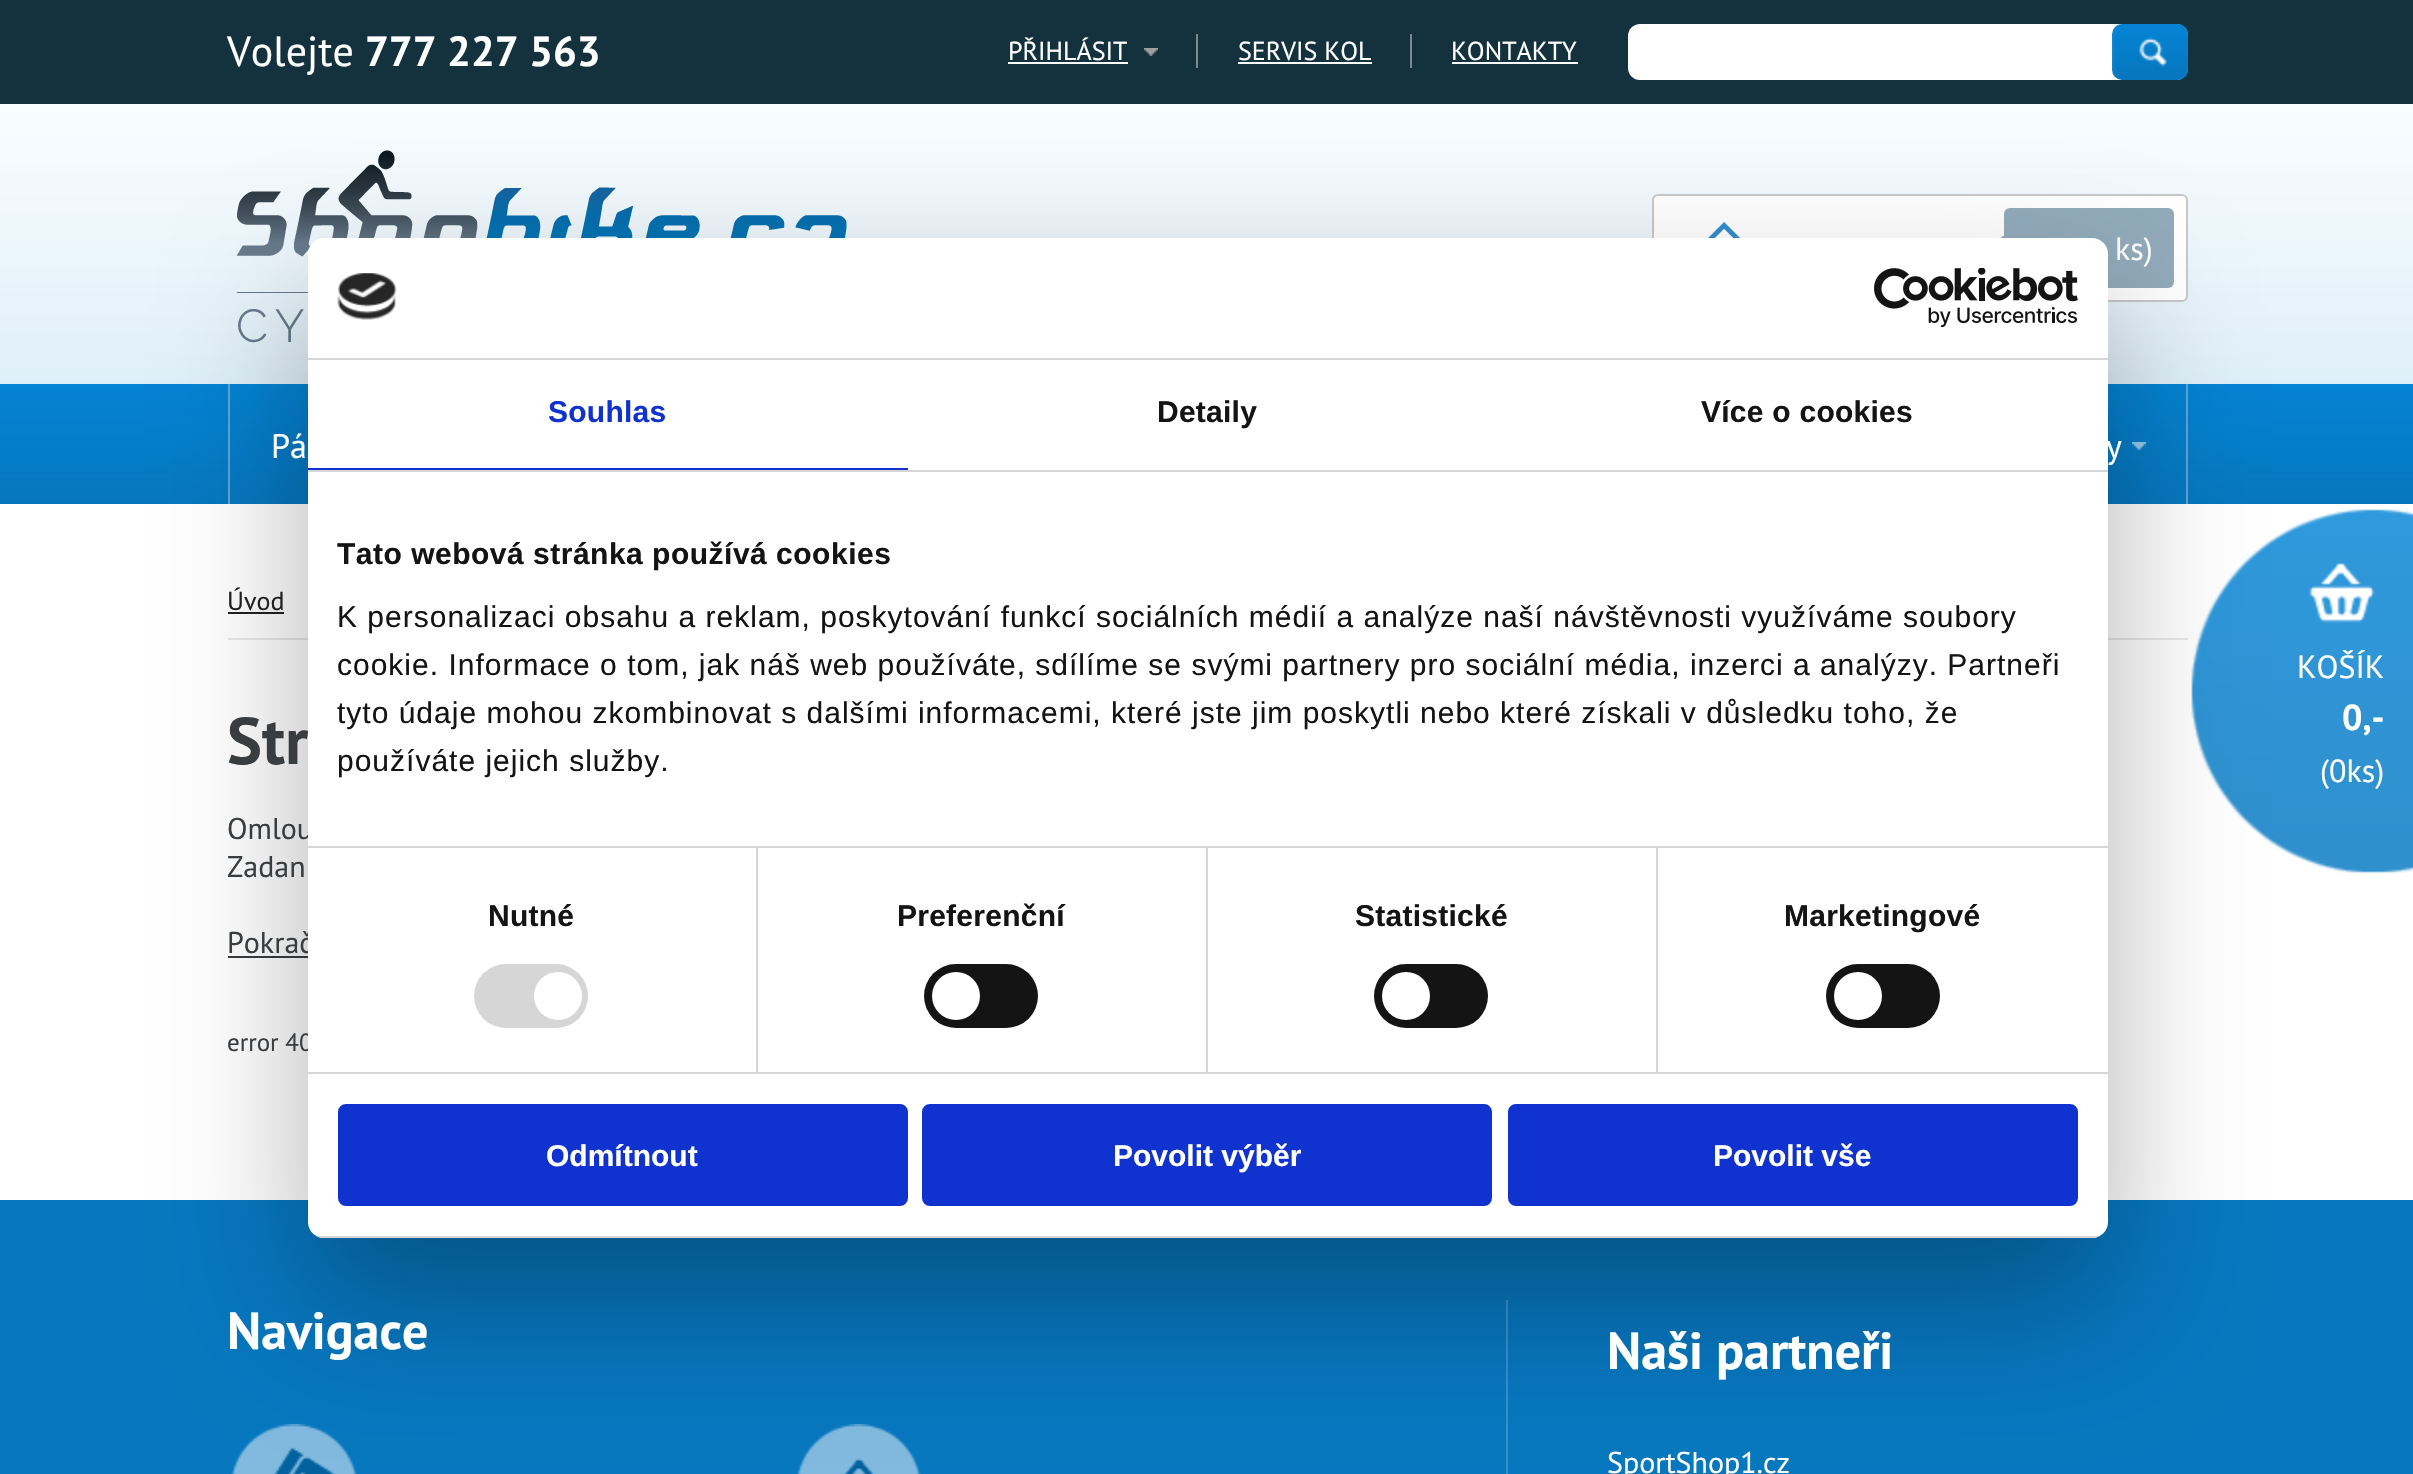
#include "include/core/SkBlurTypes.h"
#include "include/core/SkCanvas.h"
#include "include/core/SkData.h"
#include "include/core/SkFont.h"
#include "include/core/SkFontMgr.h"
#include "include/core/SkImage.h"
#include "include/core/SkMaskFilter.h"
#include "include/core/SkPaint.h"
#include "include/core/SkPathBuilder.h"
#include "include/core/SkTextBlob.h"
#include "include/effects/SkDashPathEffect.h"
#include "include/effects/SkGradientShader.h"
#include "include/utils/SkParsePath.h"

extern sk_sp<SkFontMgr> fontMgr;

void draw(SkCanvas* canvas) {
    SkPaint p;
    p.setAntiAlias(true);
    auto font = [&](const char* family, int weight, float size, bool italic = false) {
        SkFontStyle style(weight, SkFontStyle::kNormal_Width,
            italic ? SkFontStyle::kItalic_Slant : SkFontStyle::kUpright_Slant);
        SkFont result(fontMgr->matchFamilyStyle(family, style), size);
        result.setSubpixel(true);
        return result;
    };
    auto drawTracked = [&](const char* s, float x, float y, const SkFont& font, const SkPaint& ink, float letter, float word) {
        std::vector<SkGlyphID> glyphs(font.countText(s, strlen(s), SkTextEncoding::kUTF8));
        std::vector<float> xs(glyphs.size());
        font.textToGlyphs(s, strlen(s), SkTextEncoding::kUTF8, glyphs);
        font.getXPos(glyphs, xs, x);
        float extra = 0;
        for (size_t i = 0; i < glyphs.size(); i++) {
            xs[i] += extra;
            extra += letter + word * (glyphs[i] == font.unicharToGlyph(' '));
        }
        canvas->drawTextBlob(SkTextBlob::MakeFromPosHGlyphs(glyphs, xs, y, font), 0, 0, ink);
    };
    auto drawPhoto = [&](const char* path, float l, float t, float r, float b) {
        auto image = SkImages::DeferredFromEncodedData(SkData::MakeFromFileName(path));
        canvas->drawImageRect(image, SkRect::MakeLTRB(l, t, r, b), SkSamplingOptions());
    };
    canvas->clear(0xFFFFFFFF);
    p.setColor(0xFF14323D);
    canvas->drawRect(SkRect::MakeLTRB(0, 0, 2413, 104), p);
    auto font1 = font("PT Sans", 400, 42);
    p.setColor(0xFFFFFFFF);
    canvas->drawString("Volejte", 227, 66, font1, p);
    auto font2 = font("PT Sans", 700, 42);
    canvas->drawString("777 227 563", 365, 66, font2, p);
    drawPhoto("media/1.png", 1144, 48, 1158, 56);
    auto font3 = font("PT Sans", 400, 26);
    canvas->drawString("PŘIHLÁSIT", 1008, 60, font3, p);
    canvas->drawRect(SkRect::MakeLTRB(1008, 62, 1128, 64), p);
    p.setColor(0xFF7B8A8E);
    canvas->drawRect(SkRect::MakeLTRB(1196, 34, 1198, 68), p);
    p.setColor(0xFFFFFFFF);
    canvas->drawString("SERVIS KOL", 1238, 60, font3, p);
    canvas->drawRect(SkRect::MakeLTRB(1238, 62, 1372, 64), p);
    p.setColor(0xFF7B8A8E);
    canvas->drawRect(SkRect::MakeLTRB(1410, 34, 1412, 68), p);
    p.setColor(0xFFFFFFFF);
    canvas->drawString("KONTAKTY", 1451, 60, font3, p);
    canvas->drawRect(SkRect::MakeLTRB(1452, 62, 1578, 64), p);
    canvas->drawRoundRect(SkRect::MakeLTRB(1628, 24, 2188, 80), 12, 12, p);
    drawPhoto("media/2.png", 2112, 24, 2188, 80);
    {
        const SkColor colors[] = {0xFFF9FDFF, 0xFFDFEFF9};
        const float stops[] = {0, 1};
        const SkPoint ends[] = {{1207, 104}, {1207, 384}};
        p.setShader(SkGradientShader::MakeLinear(ends, colors, stops, 2, SkTileMode::kClamp));
        p.setAlpha(255);
    }
    canvas->drawRect(SkRect::MakeLTRB(0, 104, 2413, 384), p);
    drawPhoto("media/3.png", 236, 150, 847, 343);
    p.setShader(nullptr);
    p.setColor(0xFFFFFFFF);
    canvas->drawRoundRect(SkRect::MakeLTRB(1653, 195, 2187, 301), 5, 5, p);
    p.setStyle(SkPaint::kStroke_Style);
    p.setStrokeWidth(2);
    p.setColor(0xFFC8C8C8);
    canvas->drawRoundRect(SkRect::MakeLTRB(1653, 195, 2187, 301), 5, 5, p);
    drawPhoto("media/4.png", 1708, 222, 1740, 238);
    p.setStyle(SkPaint::kFill_Style);
    p.setColor(0xFF92ABBB);
    canvas->drawRoundRect(SkRect::MakeLTRB(2004, 208, 2174, 288), 6, 6, p);
    drawPhoto("media/5.png", 1999, 236, 2004, 238);
    auto font4 = font("PT Sans", 400, 32);
    p.setColor(0xFFFFFFFF);
    canvas->drawString("ks)", 2115, 260, font4, p);
    {
        const SkColor colors[] = {0xFF0677BF, 0xFF0483D3};
        const float stops[] = {0, 1};
        const SkPoint ends[] = {{1207, 504}, {1207, 384}};
        p.setShader(SkGradientShader::MakeLinear(ends, colors, stops, 2, SkTileMode::kClamp));
        p.setAlpha(255);
    }
    canvas->drawRect(SkRect::MakeLTRB(0, 384, 2413, 504), p);
    p.setShader(nullptr);
    p.setColor(0xFF5CA6D5);
    canvas->drawRect(SkRect::MakeLTRB(228, 384, 230, 504), p);
    canvas->drawRect(SkRect::MakeLTRB(2186, 384, 2188, 504), p);
    drawPhoto("media/8.png", 2132, 442, 2146, 450);
    {
        const struct { float l, t, r, b; SkColor color; } items[] = {
            {228, 638, 2188, 640, 0xFFE8E8E8},
            {228, 612, 284, 614, 0xFF212121},
            {228, 956, 308, 958, 0xFF393D3F},
        };
        for (auto [l, t, r, b, color] : items) {
            p.setColor(color);
            canvas->drawRect(SkRect::MakeLTRB(l, t, r, b), p);
        }
    }
    drawPhoto("media/9.png", 2191, 509, 2413, 873);
    p.setColor(0xFF0777BF);
    canvas->drawRect(SkRect::MakeLTRB(0, 1200, 2413, 1474), p);
    drawPhoto("media/10.png", 231, 1424, 357, 1474);
    drawPhoto("media/11.png", 797, 1424, 921, 1474);
    p.setColor(0xFF3691CB);
    canvas->drawRect(SkRect::MakeLTRB(1506, 1300, 1508, 1474), p);
    p.setColor(0x4D000000);
    p.setMaskFilter(SkMaskFilter::MakeBlur(kNormal_SkBlurStyle, 68));
    canvas->drawRoundRect(SkRect::MakeLTRB(308, 302, 2108, 1302), 16, 16, p);
    p.setMaskFilter(nullptr);
    auto font5 = font("PT Sans", 700, 66);
    p.setColor(0xFF393D3F);
    canvas->drawString("Str", 227, 764, font5, p);
    auto font6 = font("PT Sans", 400, 30);
    canvas->drawString("Omlou", 227, 839, font6, p);
    canvas->drawString("Pokrač", 227, 953, font6, p);
    auto font7 = font("PT Sans", 400, 25);
    canvas->drawString("error 40", 227, 1051, font7, p);
    p.setColor(0xFFFFFFFF);
    canvas->drawRoundRect(SkRect::MakeLTRB(308, 238, 2108, 1238), 16, 16, p);
    p.setColor(0xFFD6D6D6);
    canvas->drawRect(SkRect::MakeLTRB(308, 358, 2108, 360), p);
    drawPhoto("media/6.png", 337, 273, 397, 320);
    drawPhoto("media/7.png", 1874, 268, 2078, 328);
    canvas->drawRect(SkRect::MakeLTRB(308, 470, 2108, 472), p);
    p.setColor(0xFF1032CF);
    canvas->drawRect(SkRect::MakeLTRB(308, 468, 908, 470), p);
    auto font8 = font("Liberation Sans", 700, 30);
    drawTracked("Souhlas", 548, 422, font8, p, 0.25f, 0);
    p.setColor(0xFF141414);
    drawTracked("Detaily", 1157, 422, font8, p, 0.25f, 0);
    drawTracked("Více o cookies", 1701, 422, font8, p, 0.25f, 0);
    p.setColor(0xFFD6D6D6);
    canvas->drawRect(SkRect::MakeLTRB(308, 846, 2108, 848), p);
    p.setColor(0xFF141414);
    drawTracked("Tato webová stránka používá cookies", 337, 564, font8, p, 0.5f, 0);
    auto font9 = font("Liberation Sans", 400, 30);
    {
        const struct { const char* s; float x, y; } items[] = {
            {"K personalizaci obsahu a reklam, poskytování funkcí sociálních médií a analýze naší návštěvnosti využíváme soubory", 337, 627},
            {"cookie. Informace o tom, jak náš web používáte, sdílíme se svými partnery pro sociální média, inzerci a analýzy. Partneři", 337, 675},
            {"tyto údaje mohou zkombinovat s dalšími informacemi, které jste jim poskytli nebo které získali v důsledku toho, že", 337, 723},
            {"používáte jejich služby.", 337, 771},
        };
        for (auto [s, x, y] : items) {
            drawTracked(s, x, y, font9, p, 1, 0);
        }
    }
    p.setColor(0xFFD6D6D6);
    canvas->drawRect(SkRect::MakeLTRB(308, 1072, 2108, 1074), p);
    canvas->drawRect(SkRect::MakeLTRB(756, 848, 758, 1072), p);
    p.setColor(0xFF141414);
    drawTracked("Nutné", 488, 926, font8, p, 0.25f, 0);
    p.setColor(0xFFD6D6D6);
    canvas->drawRoundRect(SkRect::MakeLTRB(474, 964, 588, 1028), 32, 32, p);
    p.setColor(0xFFFFFFFF);
    canvas->drawCircle(558, 996, 24, p);
    p.setColor(0xFFD6D6D6);
    canvas->drawRect(SkRect::MakeLTRB(1206, 848, 1208, 1072), p);
    p.setColor(0xFF141414);
    drawTracked("Preferenční", 897, 926, font8, p, 0.25f, 0);
    canvas->drawRoundRect(SkRect::MakeLTRB(924, 964, 1038, 1028), 32, 32, p);
    p.setColor(0xFFFFFFFF);
    canvas->drawCircle(956, 996, 24, p);
    p.setColor(0xFFD6D6D6);
    canvas->drawRect(SkRect::MakeLTRB(1656, 848, 1658, 1072), p);
    p.setColor(0xFF141414);
    drawTracked("Statistické", 1355, 926, font8, p, 0.25f, 0);
    canvas->drawRoundRect(SkRect::MakeLTRB(1374, 964, 1488, 1028), 32, 32, p);
    p.setColor(0xFFFFFFFF);
    canvas->drawCircle(1406, 996, 24, p);
    p.setColor(0xFF141414);
    drawTracked("Marketingové", 1784, 926, font8, p, 0.25f, 0);
    canvas->drawRoundRect(SkRect::MakeLTRB(1826, 964, 1940, 1028), 32, 32, p);
    p.setColor(0xFFFFFFFF);
    canvas->drawCircle(1858, 996, 24, p);
    canvas->save();
    canvas->clipPath(SkPathBuilder().moveTo(324, 238).lineTo(2092, 238).cubicTo(2101, 238, 2108, 245, 2108, 254).lineTo(2108, 1222).cubicTo(2108, 1231, 2101, 1238, 2092, 1238).lineTo(324, 1238).cubicTo(315, 1238, 308, 1231, 308, 1222).lineTo(308, 254).cubicTo(308, 245, 315, 238, 324, 238).close().detach(), true);
    p.setColor(0xFFD6D6D6);
    canvas->drawRect(SkRect::MakeLTRB(308, 1236, 2108, 1238), p);
    canvas->restore();
    p.setColor(0xFF1032CF);
    canvas->drawRoundRect(SkRect::MakeLTRB(340, 1106, 906, 1204), 6, 6, p);
    p.setStyle(SkPaint::kStroke_Style);
    p.setStrokeWidth(4);
    canvas->drawRoundRect(SkRect::MakeLTRB(340, 1106, 906, 1204), 6, 6, p);
    p.setStyle(SkPaint::kFill_Style);
    p.setColor(0xFFFFFFFF);
    canvas->drawString("Odmítnout", 546, 1166, font8, p);
    p.setColor(0xFF1032CF);
    canvas->drawRoundRect(SkRect::MakeLTRB(924, 1106, 1490, 1204), 6, 6, p);
    p.setStyle(SkPaint::kStroke_Style);
    canvas->drawRoundRect(SkRect::MakeLTRB(924, 1106, 1490, 1204), 6, 6, p);
    p.setStyle(SkPaint::kFill_Style);
    p.setColor(0xFFFFFFFF);
    canvas->drawString("Povolit výběr", 1113, 1166, font8, p);
    p.setColor(0xFF1032CF);
    canvas->drawRoundRect(SkRect::MakeLTRB(1510, 1106, 2076, 1204), 6, 6, p);
    p.setStyle(SkPaint::kStroke_Style);
    canvas->drawRoundRect(SkRect::MakeLTRB(1510, 1106, 2076, 1204), 6, 6, p);
    p.setStyle(SkPaint::kFill_Style);
    p.setColor(0xFFFFFFFF);
    canvas->drawString("Povolit vše", 1713, 1166, font8, p);
    auto font10 = font("PT Sans", 400, 34);
    canvas->drawString("Pá", 271, 458, font10, p);
    canvas->drawString("y", 2106, 458, font10, p);
    p.setColor(0xFF212121);
    canvas->drawString("Úvod", 227, 610, font3, p);
    p.setColor(0xFF393D3F);
    canvas->drawString("Zadan", 227, 877, font6, p);
    p.setColor(0xFFFFFFFF);
    canvas->drawString("KOŠÍK", 2297, 678, font4, p);
    auto font11 = font("PT Sans", 700, 36);
    canvas->drawString("0,-", 2342, 730, font11, p);
    canvas->drawString("(0ks)", 2320, 782, font4, p);
    auto font12 = font("PT Sans", 700, 52);
    canvas->drawString("Navigace", 227, 1349, font12, p);
    canvas->drawString("Naši partneři", 1607, 1369, font12, p);
    canvas->drawString("SportShop1.cz", 1607, 1473, font6, p);
}
